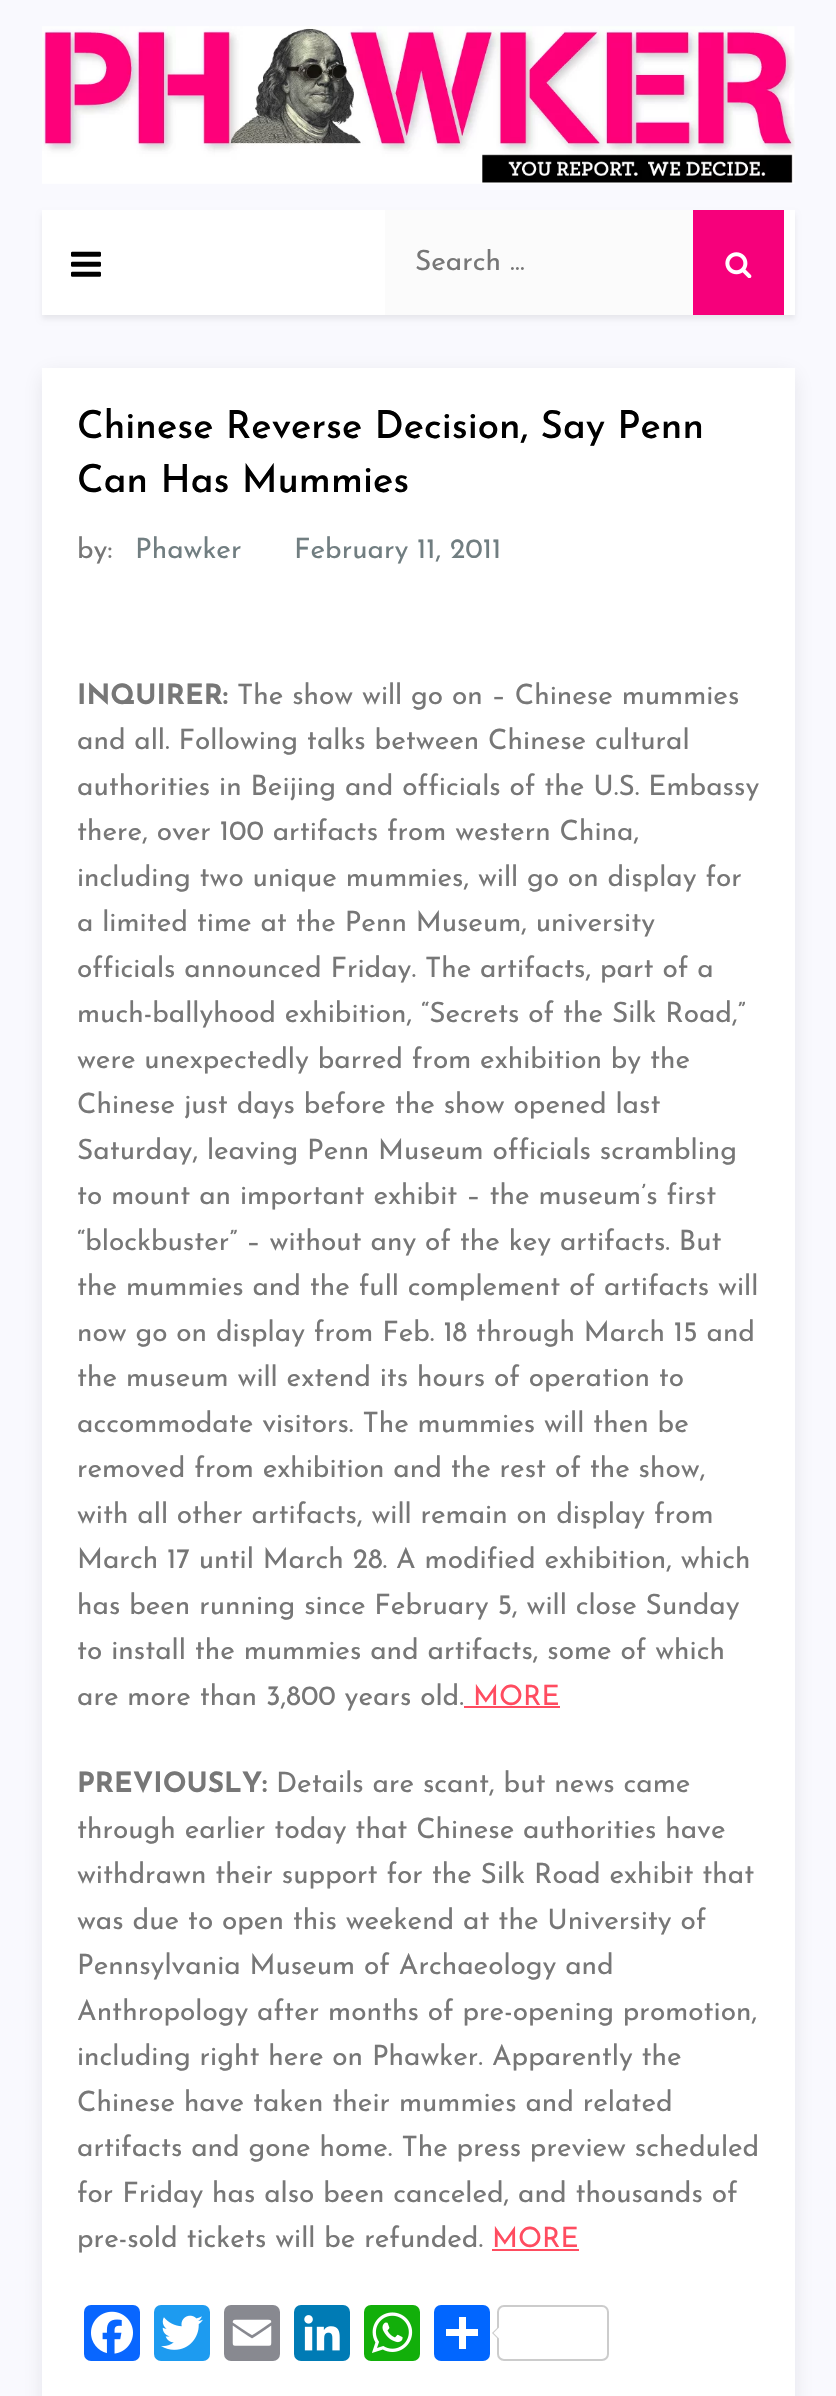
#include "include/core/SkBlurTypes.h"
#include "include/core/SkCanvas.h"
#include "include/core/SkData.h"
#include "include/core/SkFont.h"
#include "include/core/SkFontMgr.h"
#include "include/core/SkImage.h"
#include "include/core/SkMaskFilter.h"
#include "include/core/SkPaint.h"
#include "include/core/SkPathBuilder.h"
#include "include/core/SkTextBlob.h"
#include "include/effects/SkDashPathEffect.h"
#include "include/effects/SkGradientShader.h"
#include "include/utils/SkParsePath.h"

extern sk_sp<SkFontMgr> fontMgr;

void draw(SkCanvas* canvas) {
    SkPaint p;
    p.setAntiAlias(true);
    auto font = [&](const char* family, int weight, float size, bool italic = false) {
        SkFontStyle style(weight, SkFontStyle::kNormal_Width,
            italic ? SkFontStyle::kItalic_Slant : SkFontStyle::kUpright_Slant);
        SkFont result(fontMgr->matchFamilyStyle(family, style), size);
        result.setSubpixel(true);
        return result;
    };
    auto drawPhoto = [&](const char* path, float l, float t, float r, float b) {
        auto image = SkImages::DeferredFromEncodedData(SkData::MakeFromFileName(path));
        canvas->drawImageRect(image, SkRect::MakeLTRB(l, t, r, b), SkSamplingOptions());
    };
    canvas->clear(0xFFF9F9FE);
    drawPhoto("media/1.png", 42, 26, 795, 184);
    p.setColor(0x12000000);
    p.setMaskFilter(SkMaskFilter::MakeBlur(kNormal_SkBlurStyle, 2.5f));
    canvas->drawRect(SkRect::MakeLTRB(42, 214, 795, 319), p);
    p.setMaskFilter(nullptr);
    p.setColor(0xFFFFFFFF);
    canvas->drawRect(SkRect::MakeLTRB(42, 210, 795, 315), p);
    drawPhoto("media/2.png", 71, 251, 101, 277);
    p.setColor(0xFFFBFBFB);
    canvas->drawRect(SkRect::MakeLTRB(385, 210, 693, 315), p);
    canvas->save();
    canvas->clipRect(SkRect::MakeLTRB(415, 249, 728, 277));
    auto font1 = font("Josefin Sans", 400, 28);
    p.setColor(0xFF777777);
    canvas->drawString("Search …", 415, 270, font1, p);
    canvas->restore();
    p.setColor(0xFFF6007B);
    canvas->drawRect(SkRect::MakeLTRB(693, 210, 784, 315), p);
    drawPhoto("media/3.png", 725, 252, 752, 278);
    p.setColor(0x1A070A19);
    p.setMaskFilter(SkMaskFilter::MakeBlur(kNormal_SkBlurStyle, 10.5f));
    canvas->drawRect(SkRect::MakeLTRB(44, 375, 793, 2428), p);
    p.setMaskFilter(nullptr);
    p.setColor(0xFFFFFFFF);
    canvas->drawRect(SkRect::MakeLTRB(42, 368, 795, 2396), p);
    auto font2 = font("Josefin Sans", 500, 38.5f);
    p.setColor(0xFF000000);
    canvas->drawString("Chinese Reverse Decision, Say Penn", 77, 438, font2, p);
    canvas->drawString("Can Has Mummies", 77, 492, font2, p);
    p.setColor(0xFF777777);
    canvas->drawString("by:", 77, 558, font1, p);
    p.setColor(0xFF717E81);
    canvas->drawString("Phawker", 135, 558, font1, p);
    canvas->drawString("February 11, 2011", 294, 558, font1, p);
    auto font3 = font("Josefin Sans", 700, 28);
    p.setColor(0xFF777777);
    canvas->drawString("INQUIRER:", 77, 704, font3, p);
    {
        const struct { const char* s; float x, y; } items[] = {
            {"The show will go on – Chinese mummies", 237, 704},
            {"and all. Following talks between Chinese cultural", 77, 749},
            {"authorities in Beijing and officials of the U.S. Embassy", 77, 795},
            {"there, over 100 artifacts from western China,", 77, 840},
            {"including two unique mummies, will go on display for", 77, 886},
            {"a limited time at the Penn Museum, university", 77, 931},
            {"officials announced Friday. The artifacts, part of a", 77, 977},
            {"much-ballyhood exhibition, “Secrets of the Silk Road,”", 77, 1022},
            {"were unexpectedly barred from exhibition by the", 77, 1068},
            {"Chinese just days before the show opened last", 77, 1113},
            {"Saturday, leaving Penn Museum officials scrambling", 77, 1159},
            {"to mount an important exhibit – the museum’s first", 77, 1204},
            {"“blockbuster” – without any of the key artifacts. But", 77, 1250},
            {"the mummies and the full complement of artifacts will", 77, 1295},
            {"now go on display from Feb. 18 through March 15 and", 77, 1341},
            {"the museum will extend its hours of operation to", 77, 1386},
            {"accommodate visitors. The mummies will then be", 77, 1432},
            {"removed from exhibition and the rest of the show,", 77, 1477},
            {"with all other artifacts, will remain on display from", 77, 1523},
            {"March 17 until March 28. A modified exhibition, which", 77, 1568},
            {"has been running since February 5, will close Sunday", 77, 1614},
            {"to install the mummies and artifacts, some of which", 77, 1659},
            {"are more than 3,800 years old.", 77, 1705},
        };
        for (auto [s, x, y] : items) {
            canvas->drawString(s, x, y, font1, p);
        }
    }
    p.setColor(0xFFFF4C60);
    canvas->drawString("MORE", 473, 1705, font1, p);
    canvas->drawRect(SkRect::MakeLTRB(464, 1706, 560, 1708), p);
    p.setColor(0xFF777777);
    canvas->drawString("PREVIOUSLY:", 77, 1792, font3, p);
    {
        const struct { const char* s; float x, y; } items[] = {
            {"Details are scant, but news came", 276, 1792},
            {"through earlier today that Chinese authorities have", 77, 1838},
            {"withdrawn their support for the Silk Road exhibit that", 77, 1883},
            {"was due to open this weekend at the University of", 77, 1929},
            {"Pennsylvania Museum of Archaeology and", 77, 1974},
            {"Anthropology after months of pre-opening promotion,", 77, 2020},
            {"including right here on Phawker. Apparently the", 77, 2065},
            {"Chinese have taken their mummies and related", 77, 2111},
            {"artifacts and gone home. The press preview scheduled", 77, 2156},
            {"for Friday has also been canceled, and thousands of", 77, 2202},
            {"pre-sold tickets will be refunded.", 77, 2247},
        };
        for (auto [s, x, y] : items) {
            canvas->drawString(s, x, y, font1, p);
        }
    }
    p.setColor(0xFFFF4C60);
    canvas->drawString("MORE", 492, 2247, font1, p);
    canvas->drawRect(SkRect::MakeLTRB(492, 2249, 579, 2251), p);
    p.setColor(0xFF0866FF);
    canvas->drawRoundRect(SkRect::MakeLTRB(84, 2305, 140, 2361), 7, 7, p);
    drawPhoto("media/4.png", 91, 2311, 133, 2354);
    p.setColor(0xFF1D9BF0);
    canvas->drawRoundRect(SkRect::MakeLTRB(154, 2305, 210, 2361), 7, 7, p);
    drawPhoto("media/5.png", 161, 2315, 203, 2350);
    p.setColor(0xFF888990);
    canvas->drawRoundRect(SkRect::MakeLTRB(224, 2305, 280, 2361), 7, 7, p);
    drawPhoto("media/6.png", 232, 2319, 272, 2346);
    p.setColor(0xFF007BB5);
    canvas->drawRoundRect(SkRect::MakeLTRB(294, 2305, 350, 2361), 7, 7, p);
    drawPhoto("media/7.png", 304, 2315, 340, 2351);
    p.setColor(0xFF12AF0A);
    canvas->drawRoundRect(SkRect::MakeLTRB(364, 2305, 420, 2361), 7, 7, p);
    drawPhoto("media/8.png", 372, 2312, 413, 2353);
    p.setColor(0xFF0166FF);
    canvas->drawRoundRect(SkRect::MakeLTRB(434, 2305, 490, 2361), 7, 7, p);
    p.setColor(0xFFFFFFFF);
    canvas->drawRect(SkRect::MakeLTRB(459, 2317, 466, 2349), p);
    canvas->drawRect(SkRect::MakeLTRB(446, 2329, 478, 2336), p);
    p.setStyle(SkPaint::kStroke_Style);
    p.setStrokeWidth(2);
    p.setColor(0xFFCCCCCC);
    canvas->drawRoundRect(SkRect::MakeLTRB(498, 2306, 608, 2360), 6, 6, p);
    p.setStyle(SkPaint::kFill_Style);
    canvas->drawPath(SkPathBuilder().moveTo(499, 2326).lineTo(499, 2340).lineTo(492, 2333).close().detach(), p);
    p.setColor(0xFFFFFFFF);
    canvas->drawPath(SkPathBuilder().moveTo(500.5f, 2326).lineTo(500.5f, 2340).lineTo(493.5f, 2333).close().detach(), p);
}
